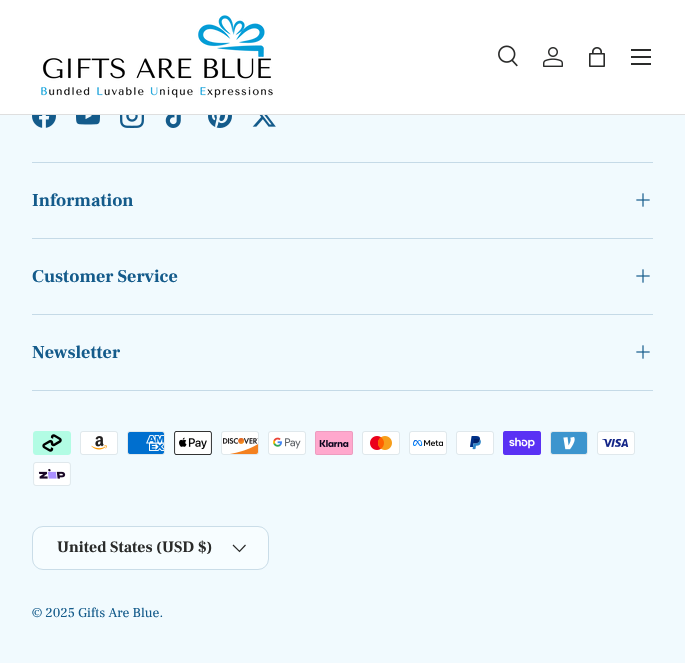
#include "include/core/SkBlurTypes.h"
#include "include/core/SkCanvas.h"
#include "include/core/SkData.h"
#include "include/core/SkFont.h"
#include "include/core/SkFontMgr.h"
#include "include/core/SkImage.h"
#include "include/core/SkMaskFilter.h"
#include "include/core/SkPaint.h"
#include "include/core/SkPathBuilder.h"
#include "include/core/SkTextBlob.h"
#include "include/effects/SkDashPathEffect.h"
#include "include/effects/SkGradientShader.h"
#include "include/utils/SkParsePath.h"

extern sk_sp<SkFontMgr> fontMgr;

void draw(SkCanvas* canvas) {
    SkPaint p;
    p.setAntiAlias(true);
    auto font = [&](const char* family, int weight, float size, bool italic = false) {
        SkFontStyle style(weight, SkFontStyle::kNormal_Width,
            italic ? SkFontStyle::kItalic_Slant : SkFontStyle::kUpright_Slant);
        SkFont result(fontMgr->matchFamilyStyle(family, style), size);
        result.setSubpixel(true);
        return result;
    };
    auto drawPhoto = [&](const char* path, float l, float t, float r, float b) {
        auto image = SkImages::DeferredFromEncodedData(SkData::MakeFromFileName(path));
        canvas->drawImageRect(image, SkRect::MakeLTRB(l, t, r, b), SkSamplingOptions());
    };
    canvas->clear(0xFFF1FAFE);
    p.setColor(0xFFFFFFFF);
    canvas->drawRect(SkRect::MakeLTRB(0, 0, 685, 114), p);
    p.setColor(0xFFDFDFDF);
    canvas->drawRect(SkRect::MakeLTRB(0, 114, 685, 115), p);
    drawPhoto("media/1.png", 41, 15, 273, 98);
    drawPhoto("media/2.png", 498, 45, 518, 67);
    drawPhoto("media/3.png", 543, 47, 563, 67);
    drawPhoto("media/4.png", 589, 47, 605, 67);
    {
        const struct { float l, t, r, b; SkColor color; } items[] = {
            {631, 49, 651, 51, 0xFF2A2B2A},
            {631, 63, 651, 65, 0xFF2A2B2A},
            {631, 56, 651, 58, 0xFF2A2B2A},
        };
        for (auto [l, t, r, b, color] : items) {
            p.setColor(color);
            canvas->drawRect(SkRect::MakeLTRB(l, t, r, b), p);
        }
    }
    drawPhoto("media/5.png", 32, 115, 56, 128);
    drawPhoto("media/6.png", 76, 115, 100, 125);
    drawPhoto("media/7.png", 120, 115, 144, 128);
    drawPhoto("media/8.png", 165, 115, 181, 128);
    drawPhoto("media/9.png", 208, 115, 232, 128);
    drawPhoto("media/10.png", 252, 115, 276, 127);
    p.setColor(0xFFC5DAE7);
    canvas->drawRect(SkRect::MakeLTRB(32, 162, 653, 163), p);
    canvas->drawRect(SkRect::MakeLTRB(32, 238, 653, 239), p);
    auto font1 = font("Frank Ruhl Libre", 700, 18);
    p.setColor(0xFF145B8B);
    canvas->drawString("Information", 32, 206, font1, p);
    drawPhoto("media/11.png", 636, 193, 650, 207);
    p.setColor(0xFFC5DAE7);
    canvas->drawRect(SkRect::MakeLTRB(32, 314, 653, 315), p);
    p.setColor(0xFF145B8B);
    canvas->drawString("Customer Service", 32, 282, font1, p);
    drawPhoto("media/11.png", 636, 269, 650, 283);
    p.setColor(0xFFC5DAE7);
    canvas->drawRect(SkRect::MakeLTRB(32, 390, 653, 391), p);
    p.setColor(0xFF145B8B);
    canvas->drawString("Newsletter", 32, 358, font1, p);
    drawPhoto("media/11.png", 636, 345, 650, 359);
    drawPhoto("media/12.png", 33, 431, 71, 455);
    drawPhoto("media/13.png", 80, 431, 118, 455);
    drawPhoto("media/14.png", 127, 431, 165, 455);
    drawPhoto("media/15.png", 174, 431, 212, 455);
    drawPhoto("media/16.png", 221, 431, 259, 455);
    drawPhoto("media/17.png", 268, 431, 306, 455);
    drawPhoto("media/18.png", 315, 431, 353, 455);
    drawPhoto("media/19.png", 362, 431, 400, 455);
    drawPhoto("media/20.png", 409, 431, 447, 455);
    drawPhoto("media/21.png", 456, 431, 494, 455);
    drawPhoto("media/22.png", 503, 431, 541, 455);
    drawPhoto("media/23.png", 550, 431, 588, 455);
    drawPhoto("media/24.png", 597, 431, 635, 455);
    drawPhoto("media/25.png", 33, 462, 71, 486);
    p.setColor(0xFFF7FDFF);
    canvas->drawRoundRect(SkRect::MakeLTRB(32.5f, 526.5f, 268.5f, 569.5f), 10.5f, 10.5f, p);
    p.setStyle(SkPaint::kStroke_Style);
    p.setStrokeWidth(1);
    p.setColor(0xFFCADDE8);
    canvas->drawRoundRect(SkRect::MakeLTRB(32.5f, 526.5f, 268.5f, 569.5f), 10.5f, 10.5f, p);
    auto font2 = font("Frank Ruhl Libre", 700, 15.75f);
    p.setStyle(SkPaint::kFill_Style);
    p.setColor(0xFF2A2B2A);
    canvas->drawString("United States (USD $)", 57, 552, font2, p);
    p.setStyle(SkPaint::kStroke_Style);
    p.setStrokeWidth(1.2f);
    canvas->drawPath(SkPathBuilder().moveTo(245.5f, 545).lineTo(239.5f, 551.5f).lineTo(233, 545).detach(), p);
    auto font3 = font("Frank Ruhl Libre", 400, 13.5f);
    p.setStyle(SkPaint::kFill_Style);
    p.setColor(0xFF145B8B);
    canvas->drawString("© 2025 Gifts Are Blue.", 32, 617, font3, p);
}
